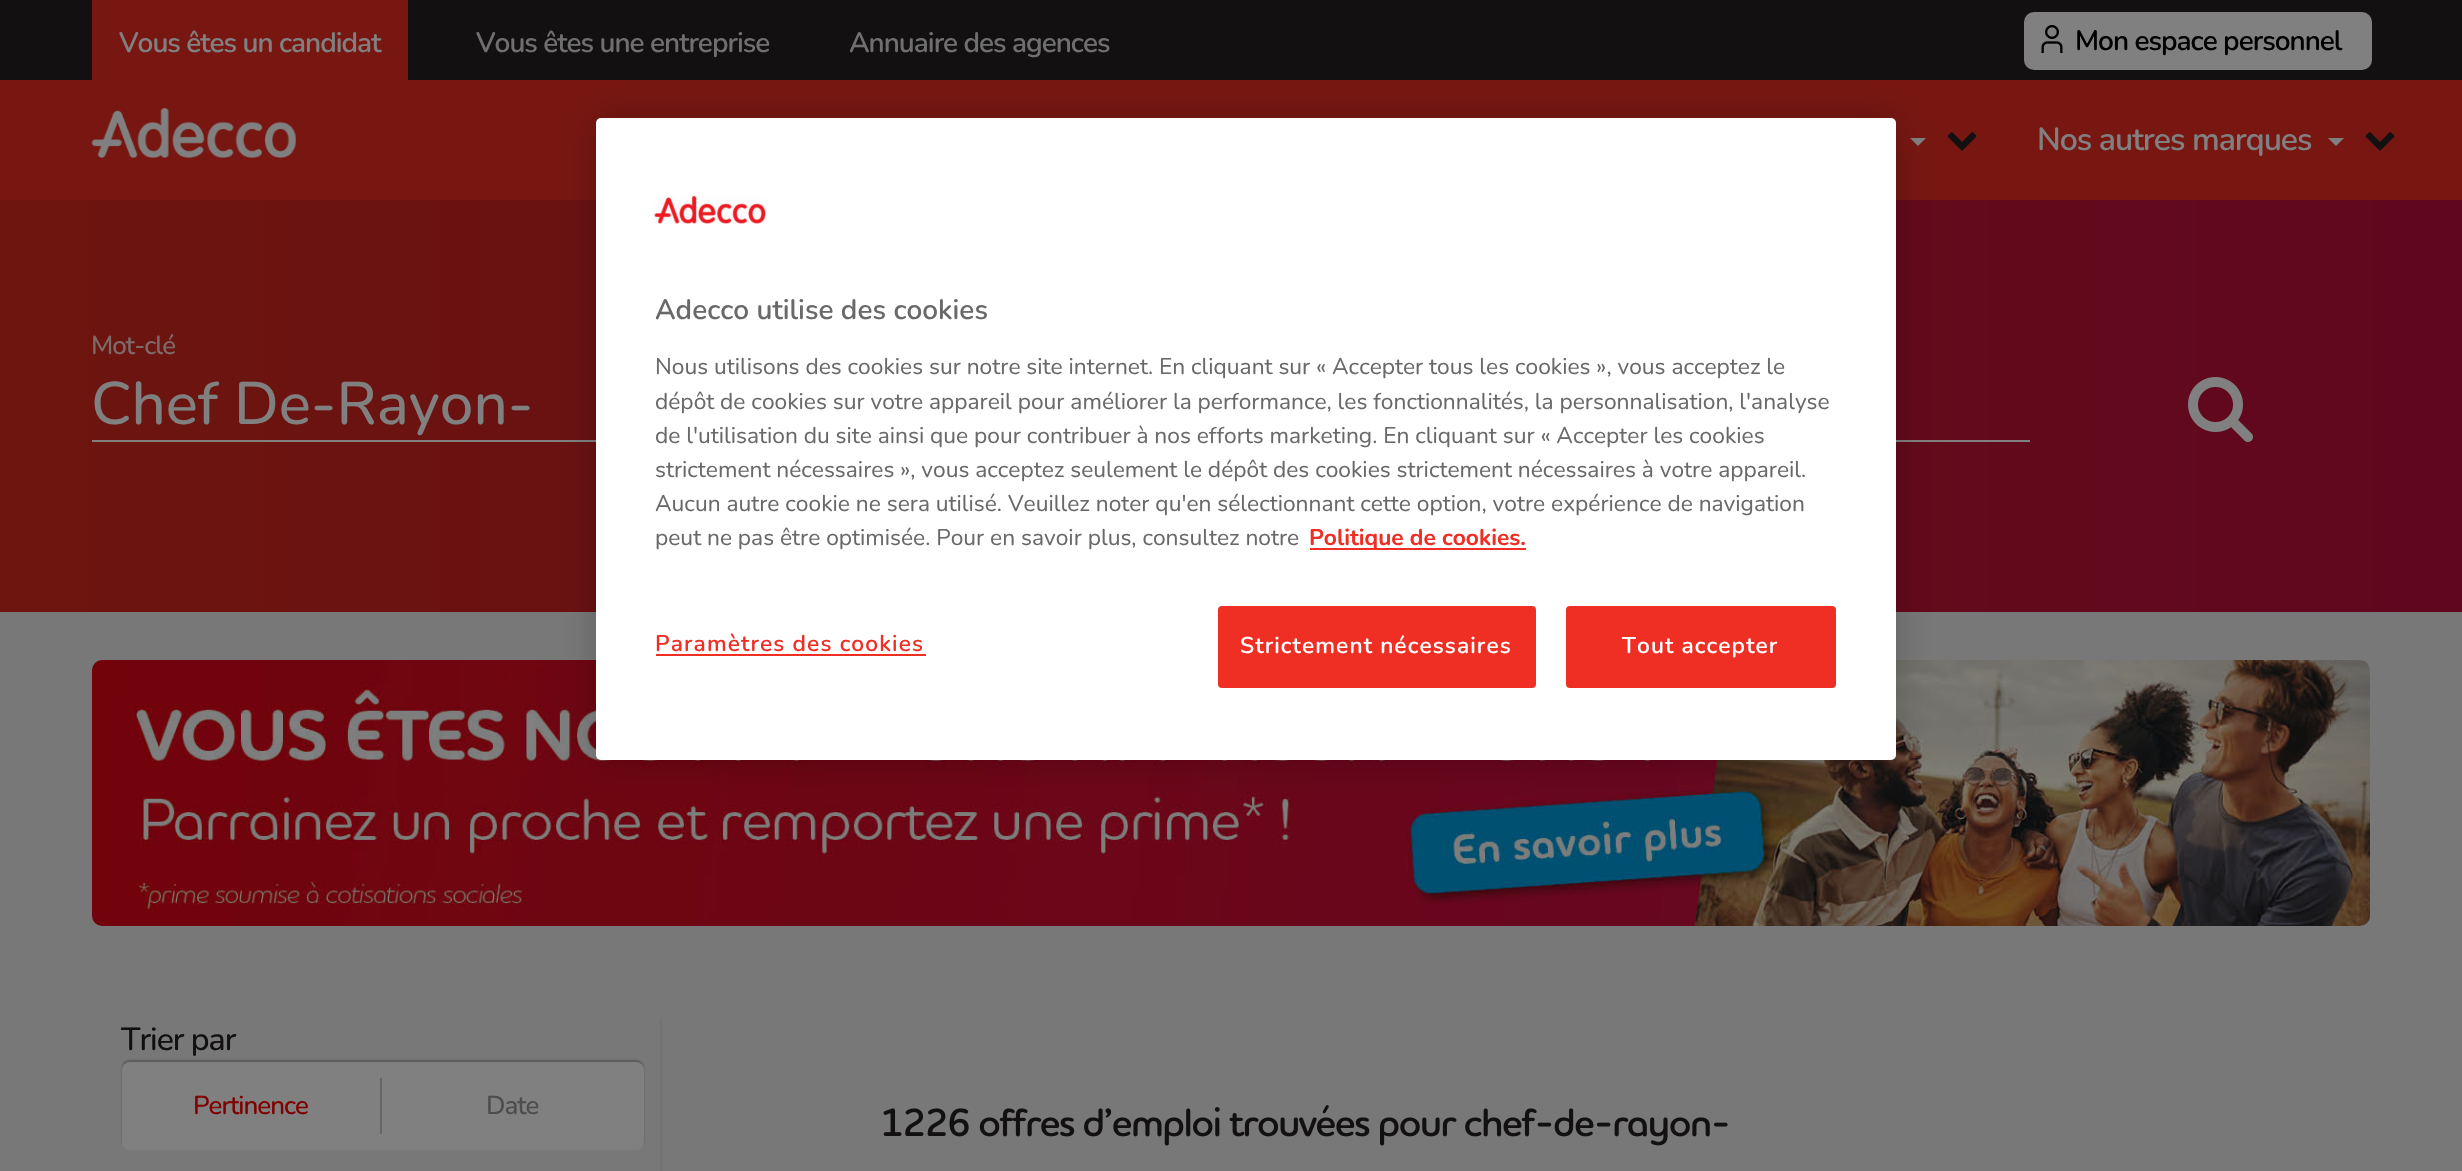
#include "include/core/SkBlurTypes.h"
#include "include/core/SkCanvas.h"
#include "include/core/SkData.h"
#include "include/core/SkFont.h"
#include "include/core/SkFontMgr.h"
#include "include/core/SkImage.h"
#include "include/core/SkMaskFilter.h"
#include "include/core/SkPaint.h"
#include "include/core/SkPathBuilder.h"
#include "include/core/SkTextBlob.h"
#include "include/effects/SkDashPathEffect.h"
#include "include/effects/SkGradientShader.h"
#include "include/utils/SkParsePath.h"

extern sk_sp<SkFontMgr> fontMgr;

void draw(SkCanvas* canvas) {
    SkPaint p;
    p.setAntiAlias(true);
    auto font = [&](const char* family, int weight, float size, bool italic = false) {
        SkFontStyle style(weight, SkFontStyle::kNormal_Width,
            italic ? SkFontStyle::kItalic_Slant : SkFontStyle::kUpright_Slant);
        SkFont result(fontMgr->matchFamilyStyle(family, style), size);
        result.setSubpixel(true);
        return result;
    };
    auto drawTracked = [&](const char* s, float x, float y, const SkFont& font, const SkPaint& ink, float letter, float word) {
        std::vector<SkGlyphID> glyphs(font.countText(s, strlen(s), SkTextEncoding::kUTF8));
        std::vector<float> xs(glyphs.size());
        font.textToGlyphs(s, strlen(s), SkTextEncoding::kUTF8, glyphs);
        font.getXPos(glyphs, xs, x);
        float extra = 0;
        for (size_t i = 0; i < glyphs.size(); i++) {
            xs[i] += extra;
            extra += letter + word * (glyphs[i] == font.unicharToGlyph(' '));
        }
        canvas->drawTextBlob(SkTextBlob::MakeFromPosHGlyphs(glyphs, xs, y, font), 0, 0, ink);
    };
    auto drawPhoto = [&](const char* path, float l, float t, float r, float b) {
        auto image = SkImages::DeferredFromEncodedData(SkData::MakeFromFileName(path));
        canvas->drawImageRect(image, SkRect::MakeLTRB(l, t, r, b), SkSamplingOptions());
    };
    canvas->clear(0xFF787878);
    {
        const struct { float l, t, r, b; SkColor color; } items[] = {
            {0, 80, 2462, 200, 0xFF781712},
            {0, 0, 2462, 80, 0xFF121010},
            {92, 0, 408, 80, 0xFF781712},
        };
        for (auto [l, t, r, b, color] : items) {
            p.setColor(color);
            canvas->drawRect(SkRect::MakeLTRB(l, t, r, b), p);
        }
    }
    auto font1 = font("Nunito", 600, 28);
    p.setColor(0xFF808080);
    drawTracked("Vous êtes un candidat", 119, 52, font1, p, -1, 0);
    p.setColor(0xFF6F6F6F);
    drawTracked("Vous êtes une entreprise", 476, 52, font1, p, -1, 0);
    drawTracked("Annuaire des agences", 849, 52, font1, p, -1, 0);
    p.setColor(0xFF808080);
    canvas->drawRoundRect(SkRect::MakeLTRB(2024, 12, 2372, 70), 10, 10, p);
    drawPhoto("media/1.png", 2041, 25, 2063, 53);
    p.setColor(0xFF000000);
    drawTracked("Mon espace personnel", 2075, 50, font1, p, -1, 0);
    drawPhoto("media/2.png", 91, 108, 296, 158);
    p.setColor(0xFF808080);
    canvas->drawPath(SkPathBuilder().moveTo(1910, 138).lineTo(1926, 138).lineTo(1918, 146).close().detach(), p);
    drawPhoto("media/3.png", 1947, 132, 1977, 151);
    auto font2 = font("Nunito", 600, 32);
    drawTracked("Nos autres marques", 2037, 150, font2, p, -1, 0);
    canvas->drawPath(SkPathBuilder().moveTo(2328, 138).lineTo(2344, 138).lineTo(2336, 146).close().detach(), p);
    drawPhoto("media/3.png", 2365, 132, 2395, 151);
    {
        const SkColor colors[] = {0xFF6D150E, 0xFF60071F};
        const float stops[] = {0, 1};
        const SkPoint ends[] = {{0, 400}, {2462, 400}};
        p.setShader(SkGradientShader::MakeLinear(ends, colors, stops, 2, SkTileMode::kClamp));
        p.setAlpha(255);
    }
    canvas->drawRect(SkRect::MakeLTRB(0, 200, 2462, 612), p);
    p.setShader(nullptr);
    p.setColor(0xFF808080);
    canvas->drawRect(SkRect::MakeLTRB(92, 440, 596, 442), p);
    auto font3 = font("Nunito", 500, 26);
    p.setColor(0xFF7C6A69);
    drawTracked("Mot-clé", 91, 354, font3, p, -1, 0);
    auto font4 = font("Nunito", 500, 60);
    p.setColor(0xFF808080);
    canvas->drawString("Chef De-Rayon-", 91, 424, font4, p);
    canvas->drawRect(SkRect::MakeLTRB(1896, 440, 2030, 442), p);
    drawPhoto("media/4.png", 2188, 377, 2253, 442);
    drawPhoto("media/5.png", 92, 660, 2370, 926);
    p.setColor(0xFF747373);
    canvas->drawRect(SkRect::MakeLTRB(660, 1018, 662, 1171), p);
    auto font5 = font("Nunito", 500, 32);
    p.setColor(0xFF121010);
    drawTracked("Trier par", 121, 1050, font5, p, -1, 0);
    p.setColor(0xFF595959);
    p.setMaskFilter(SkMaskFilter::MakeBlur(kNormal_SkBlurStyle, 1));
    canvas->drawRoundRect(SkRect::MakeLTRB(122, 1060, 644, 1148), 8, 8, p);
    p.setMaskFilter(nullptr);
    p.setColor(0xFF808080);
    canvas->drawRoundRect(SkRect::MakeLTRB(122, 1062, 644, 1150), 8, 8, p);
    p.setColor(0xFF666666);
    canvas->drawRect(SkRect::MakeLTRB(380, 1078, 382, 1134), p);
    p.setColor(0xFF800000);
    drawTracked("Pertinence", 193, 1114, font3, p, -1, 0);
    p.setColor(0xFF4D4D4D);
    drawTracked("Date", 486, 1114, font3, p, -1, 0);
    drawPhoto("media/6.png", 883, 1105, 1728, 1146);
    p.setColor(0x33000000);
    p.setMaskFilter(SkMaskFilter::MakeBlur(kNormal_SkBlurStyle, 18));
    canvas->drawRoundRect(SkRect::MakeLTRB(596, 118, 1896, 760), 5, 5, p);
    p.setMaskFilter(nullptr);
    p.setColor(0xFFFFFFFF);
    canvas->drawRoundRect(SkRect::MakeLTRB(596, 118, 1896, 760), 5, 5, p);
    drawPhoto("media/7.png", 653, 195, 766, 224);
    p.setColor(0xFF696969);
    canvas->drawString("Adecco utilise des cookies", 655, 319, font1, p);
    auto font6 = font("Nunito", 400, 22.75f);
    {
        const struct { const char* s; float x, y; } items[] = {
            {"Nous utilisons des cookies sur notre site internet. En cliquant sur « Accepter tous les cookies », vous acceptez le", 655, 374},
            {"dépôt de cookies sur votre appareil pour améliorer la performance, les fonctionnalités, la personnalisation, l'analyse", 655, 409},
            {"de l'utilisation du site ainsi que pour contribuer à nos efforts marketing. En cliquant sur « Accepter les cookies", 655, 443},
            {"strictement nécessaires », vous acceptez seulement le dépôt des cookies strictement nécessaires à votre appareil.", 655, 477},
            {"Aucun autre cookie ne sera utilisé. Veuillez noter qu'en sélectionnant cette option, votre expérience de navigation", 655, 511},
            {"peut ne pas être optimisée. Pour en savoir plus, consultez notre", 655, 545},
        };
        for (auto [s, x, y] : items) {
            canvas->drawString(s, x, y, font6, p);
        }
    }
    p.setColor(0xFFEF2E24);
    canvas->drawRect(SkRect::MakeLTRB(1310, 548, 1526, 550), p);
    auto font7 = font("Nunito", 700, 22.75f);
    canvas->drawString("Politique de cookies.", 1309, 545, font7, p);
    auto font8 = font("Nunito", 600, 22.75f);
    drawTracked("Paramètres des cookies", 655, 651, font8, p, 1.1f, 0);
    canvas->drawRect(SkRect::MakeLTRB(656, 654, 926, 656), p);
    canvas->drawRoundRect(SkRect::MakeLTRB(1219, 607, 1535, 687), 3, 3, p);
    p.setStyle(SkPaint::kStroke_Style);
    p.setStrokeWidth(2);
    canvas->drawRoundRect(SkRect::MakeLTRB(1219, 607, 1535, 687), 3, 3, p);
    p.setStyle(SkPaint::kFill_Style);
    p.setColor(0xFFFFFFFF);
    drawTracked("Strictement nécessaires", 1240, 653, font8, p, 1.1f, 0);
    p.setColor(0xFFEF2E24);
    canvas->drawRoundRect(SkRect::MakeLTRB(1567, 607, 1835, 687), 3, 3, p);
    p.setStyle(SkPaint::kStroke_Style);
    canvas->drawRoundRect(SkRect::MakeLTRB(1567, 607, 1835, 687), 3, 3, p);
    p.setStyle(SkPaint::kFill_Style);
    p.setColor(0xFFFFFFFF);
    drawTracked("Tout accepter", 1622, 653, font8, p, 1.1f, 0);
}
